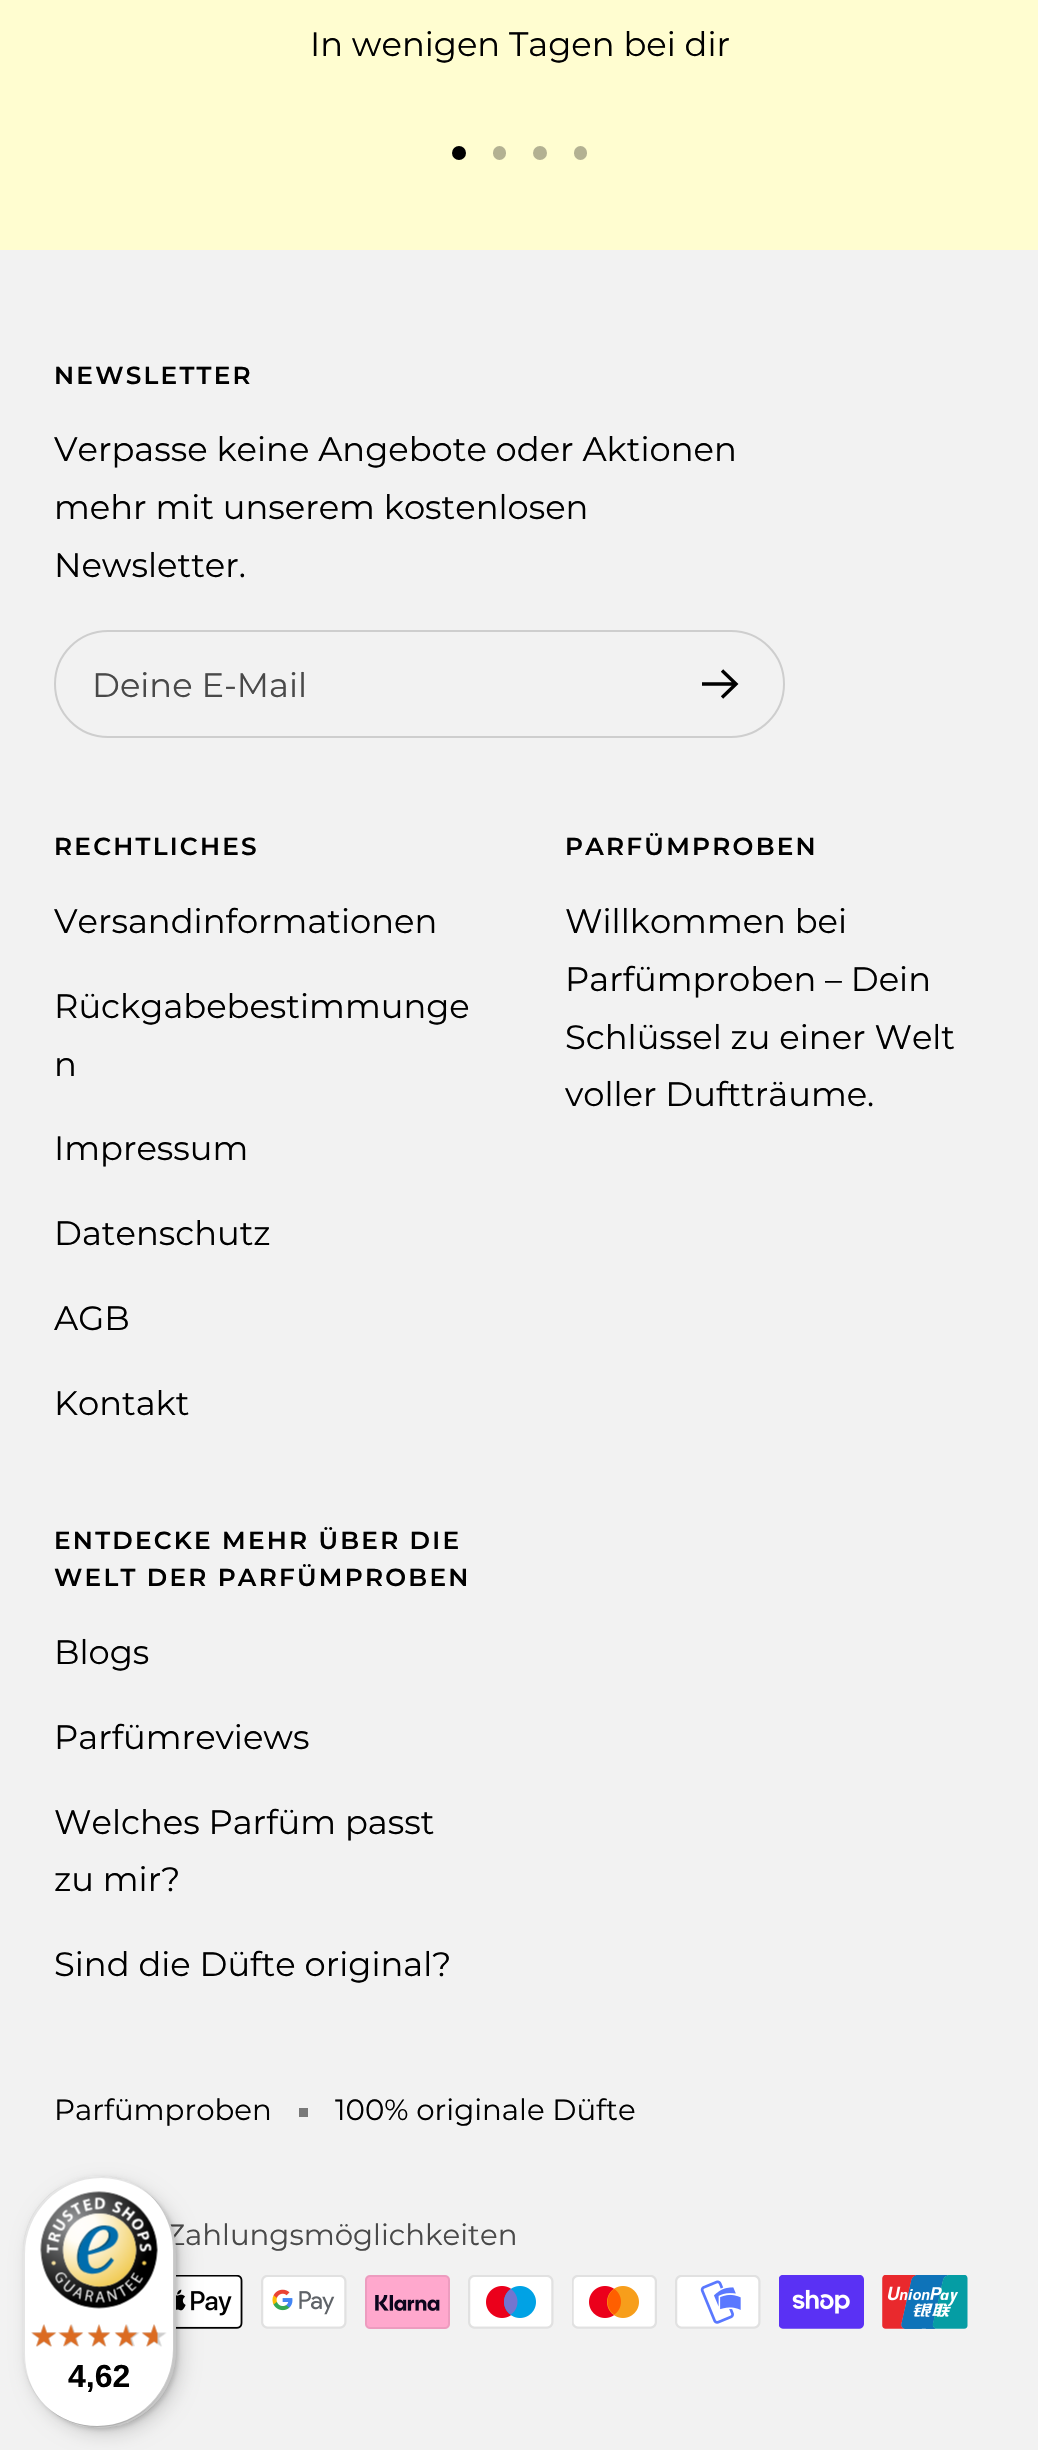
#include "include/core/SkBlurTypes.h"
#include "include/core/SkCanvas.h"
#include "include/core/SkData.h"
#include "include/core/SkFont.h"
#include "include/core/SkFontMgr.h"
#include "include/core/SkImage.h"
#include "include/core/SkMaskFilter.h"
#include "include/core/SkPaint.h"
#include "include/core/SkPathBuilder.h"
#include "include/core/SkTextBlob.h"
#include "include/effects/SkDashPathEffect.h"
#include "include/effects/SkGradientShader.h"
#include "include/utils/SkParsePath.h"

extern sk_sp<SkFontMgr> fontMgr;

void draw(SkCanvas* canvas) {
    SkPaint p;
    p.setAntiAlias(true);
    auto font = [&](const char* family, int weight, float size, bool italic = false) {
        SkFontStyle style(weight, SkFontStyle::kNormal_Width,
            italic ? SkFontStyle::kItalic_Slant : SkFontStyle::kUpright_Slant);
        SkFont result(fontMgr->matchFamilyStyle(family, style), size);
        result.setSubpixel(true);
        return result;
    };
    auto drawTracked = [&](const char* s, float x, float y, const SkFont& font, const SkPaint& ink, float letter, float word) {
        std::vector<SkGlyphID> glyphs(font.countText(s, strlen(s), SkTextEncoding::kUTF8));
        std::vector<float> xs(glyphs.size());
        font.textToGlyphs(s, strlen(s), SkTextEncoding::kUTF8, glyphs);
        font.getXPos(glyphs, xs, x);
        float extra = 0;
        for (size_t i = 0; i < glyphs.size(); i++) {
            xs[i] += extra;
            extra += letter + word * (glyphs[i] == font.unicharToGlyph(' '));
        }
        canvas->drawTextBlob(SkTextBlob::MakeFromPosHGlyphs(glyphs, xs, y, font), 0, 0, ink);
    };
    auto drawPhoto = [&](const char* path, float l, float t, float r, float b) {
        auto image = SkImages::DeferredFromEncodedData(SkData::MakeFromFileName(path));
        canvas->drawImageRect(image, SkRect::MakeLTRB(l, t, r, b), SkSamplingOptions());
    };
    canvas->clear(0xFFFFFDD0);
    auto font1 = font("Montserrat", 100, 33.75f);
    p.setColor(0xFF000000);
    canvas->drawString("In wenigen Tagen bei dir", 310, 56, font1, p);
    canvas->drawCircle(459, 153, 7, p);
    p.setColor(0xFFB3B192);
    canvas->drawRoundRect(SkRect::MakeLTRB(493, 146, 506, 160), 6.5f, 6.5f, p);
    canvas->drawCircle(540, 153, 7, p);
    canvas->drawRoundRect(SkRect::MakeLTRB(574, 146, 587, 160), 6.5f, 6.5f, p);
    p.setColor(0xFFF2F2F2);
    canvas->drawRect(SkRect::MakeLTRB(0, 250, 1038, 2450), p);
    auto font2 = font("Montserrat", 600, 24.75f);
    p.setColor(0xFF000000);
    drawTracked("NEWSLETTER", 54, 384, font2, p, 2.25f, 0);
    {
        const struct { const char* s; float x, y; } items[] = {
            {"Verpasse keine Angebote oder Aktionen", 54, 461},
            {"mehr mit unserem kostenlosen", 54, 519},
            {"Newsletter.", 54, 577},
        };
        for (auto [s, x, y] : items) {
            canvas->drawString(s, x, y, font1, p);
        }
    }
    p.setStyle(SkPaint::kStroke_Style);
    p.setStrokeWidth(2);
    p.setColor(0xFFCECECE);
    canvas->drawRoundRect(SkRect::MakeLTRB(55, 631, 784, 737), 53, 53, p);
    p.setStyle(SkPaint::kFill_Style);
    p.setColor(0xFF494949);
    canvas->drawString("Deine E-Mail", 92, 697, font1, p);
    p.setStyle(SkPaint::kStroke_Style);
    p.setStrokeWidth(3.4f);
    p.setColor(0xFF000000);
    canvas->drawPath(SkPathBuilder().moveTo(702, 684).lineTo(736, 684).moveTo(722, 670.5f).lineTo(736, 684).lineTo(722, 697.5f).detach(), p);
    p.setStyle(SkPaint::kFill_Style);
    drawTracked("RECHTLICHES", 54, 855, font2, p, 2.25f, 0);
    {
        const struct { const char* s; float x, y; } items[] = {
            {"Versandinformationen", 54, 933},
            {"Rückgabebestimmunge", 54, 1018},
            {"n", 54, 1076},
            {"Impressum", 54, 1160},
            {"Datenschutz", 54, 1245},
            {"AGB", 54, 1330},
            {"Kontakt", 54, 1415},
        };
        for (auto [s, x, y] : items) {
            canvas->drawString(s, x, y, font1, p);
        }
    }
    drawTracked("PARFÜMPROBEN", 565, 855, font2, p, 2.25f, 0);
    {
        const struct { const char* s; float x, y; } items[] = {
            {"Willkommen bei", 565, 933},
            {"Parfümproben – Dein", 565, 991},
            {"Schlüssel zu einer Welt", 565, 1049},
            {"voller Duftträume.", 565, 1106},
        };
        for (auto [s, x, y] : items) {
            canvas->drawString(s, x, y, font1, p);
        }
    }
    drawTracked("ENTDECKE MEHR ÜBER DIE", 54, 1549, font2, p, 2.25f, 0);
    drawTracked("WELT DER PARFÜMPROBEN", 54, 1586, font2, p, 2.25f, 0);
    {
        const struct { const char* s; float x, y; } items[] = {
            {"Blogs", 54, 1664},
            {"Parfümreviews", 54, 1749},
            {"Welches Parfüm passt", 54, 1834},
            {"zu mir?", 54, 1891},
            {"Sind die Düfte original?", 54, 1976},
        };
        for (auto [s, x, y] : items) {
            canvas->drawString(s, x, y, font1, p);
        }
    }
    auto font3 = font("Montserrat", 100, 29.25f);
    canvas->drawString("Parfümproben", 54, 2120, font3, p);
    p.setColor(0xFF797979);
    canvas->drawRect(SkRect::MakeLTRB(299, 2108, 308, 2117), p);
    p.setColor(0xFF000000);
    canvas->drawString("100% originale Düfte", 335, 2120, font3, p);
    p.setColor(0xFF494949);
    canvas->drawString("Zahlungsmöglichkeiten", 166, 2245, font3, p);
    drawPhoto("media/1.png", 176, 2275, 243, 2329);
    drawPhoto("media/2.png", 261, 2275, 347, 2329);
    drawPhoto("media/3.png", 365, 2275, 450, 2329);
    drawPhoto("media/4.png", 468, 2275, 554, 2329);
    drawPhoto("media/5.png", 572, 2275, 657, 2329);
    drawPhoto("media/6.png", 675, 2275, 761, 2329);
    drawPhoto("media/7.png", 779, 2275, 864, 2329);
    drawPhoto("media/8.png", 882, 2275, 968, 2329);
    p.setColor(0x26000000);
    p.setMaskFilter(SkMaskFilter::MakeBlur(kNormal_SkBlurStyle, 9));
    canvas->drawRoundRect(SkRect::MakeLTRB(29, 2183, 182, 2435), 76.5f, 76.5f, p);
    p.setMaskFilter(nullptr);
    p.setMaskFilter(SkMaskFilter::MakeBlur(kNormal_SkBlurStyle, 2));
    canvas->drawRoundRect(SkRect::MakeLTRB(25, 2178, 178, 2430), 76.5f, 76.5f, p);
    p.setMaskFilter(nullptr);
    p.setColor(0xFFFFFFFF);
    canvas->drawRoundRect(SkRect::MakeLTRB(23, 2176, 176, 2428), 76.5f, 76.5f, p);
    p.setColor(0x1A000000);
    canvas->drawPath(SkPathBuilder().moveTo(101, 2178).cubicTo(123, 2178, 143, 2187, 157, 2202).cubicTo(143, 2186, 122, 2176, 100, 2176).cubicTo(57, 2176, 23, 2210, 23, 2252).lineTo(23, 2352).cubicTo(23, 2371, 30, 2389, 42, 2402).cubicTo(31, 2389, 25, 2372, 25, 2354).lineTo(25, 2254).cubicTo(25, 2212, 59, 2178, 101, 2178).close().detach(), p);
    p.setColor(0x33000000);
    canvas->drawPath(SkPathBuilder().moveTo(48, 2408).cubicTo(61, 2420, 80, 2428, 100, 2428).cubicTo(142, 2428, 176, 2394, 176, 2352).lineTo(176, 2252).cubicTo(176, 2227, 163, 2204, 144, 2190).cubicTo(162, 2204, 173, 2226, 173, 2250).lineTo(173, 2349).cubicTo(173, 2391, 139, 2426, 97, 2426).cubicTo(78, 2426, 61, 2419, 48, 2408).close().detach(), p);
    p.setColor(0x33323232);
    canvas->drawPath(SkPathBuilder().moveTo(47, 2407).cubicTo(60, 2420, 79, 2428, 100, 2428).cubicTo(142, 2428, 176, 2394, 176, 2352).lineTo(176, 2252).cubicTo(176, 2230, 166, 2209, 150, 2195).cubicTo(165, 2209, 174, 2229, 174, 2251).lineTo(174, 2350).cubicTo(174, 2392, 140, 2426, 98, 2426).cubicTo(78, 2426, 60, 2419, 47, 2407).close().detach(), p);
    p.setColor(0x4DFFFFFF);
    canvas->drawPath(SkPathBuilder().moveTo(51, 2411).cubicTo(64, 2421, 81, 2428, 100, 2428).cubicTo(142, 2428, 176, 2394, 176, 2352).lineTo(176, 2252).cubicTo(176, 2225, 161, 2200, 139, 2187).cubicTo(160, 2200, 174, 2224, 174, 2251).lineTo(174, 2350).cubicTo(174, 2392, 140, 2427, 98, 2427).cubicTo(80, 2427, 64, 2421, 51, 2411).close().detach(), p);
    drawPhoto("media/9.png", 40, 2191, 158, 2309);
    drawPhoto("media/10.png", 31, 2324, 56, 2347);
    drawPhoto("media/11.png", 61, 2324, 83, 2347);
    drawPhoto("media/12.png", 88, 2324, 110, 2347);
    drawPhoto("media/13.png", 115, 2324, 140, 2347);
    drawPhoto("media/14.png", 142, 2324, 167, 2347);
    drawPhoto("media/15.png", 31, 2324, 57, 2347);
    drawPhoto("media/16.png", 58, 2324, 84, 2347);
    drawPhoto("media/17.png", 87, 2324, 111, 2347);
    drawPhoto("media/18.png", 114, 2324, 138, 2347);
    drawPhoto("media/19.png", 141, 2324, 158, 2347);
    auto font4 = font("Liberation Sans", 700, 32);
    p.setColor(0xFF000000);
    canvas->drawString("4,62", 68, 2387, font4, p);
}
